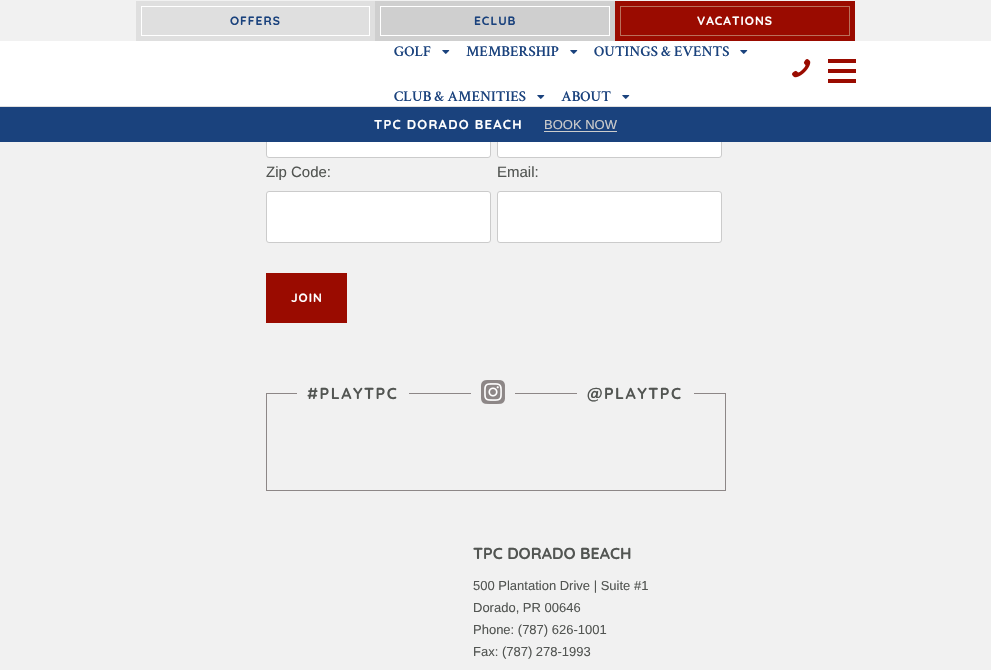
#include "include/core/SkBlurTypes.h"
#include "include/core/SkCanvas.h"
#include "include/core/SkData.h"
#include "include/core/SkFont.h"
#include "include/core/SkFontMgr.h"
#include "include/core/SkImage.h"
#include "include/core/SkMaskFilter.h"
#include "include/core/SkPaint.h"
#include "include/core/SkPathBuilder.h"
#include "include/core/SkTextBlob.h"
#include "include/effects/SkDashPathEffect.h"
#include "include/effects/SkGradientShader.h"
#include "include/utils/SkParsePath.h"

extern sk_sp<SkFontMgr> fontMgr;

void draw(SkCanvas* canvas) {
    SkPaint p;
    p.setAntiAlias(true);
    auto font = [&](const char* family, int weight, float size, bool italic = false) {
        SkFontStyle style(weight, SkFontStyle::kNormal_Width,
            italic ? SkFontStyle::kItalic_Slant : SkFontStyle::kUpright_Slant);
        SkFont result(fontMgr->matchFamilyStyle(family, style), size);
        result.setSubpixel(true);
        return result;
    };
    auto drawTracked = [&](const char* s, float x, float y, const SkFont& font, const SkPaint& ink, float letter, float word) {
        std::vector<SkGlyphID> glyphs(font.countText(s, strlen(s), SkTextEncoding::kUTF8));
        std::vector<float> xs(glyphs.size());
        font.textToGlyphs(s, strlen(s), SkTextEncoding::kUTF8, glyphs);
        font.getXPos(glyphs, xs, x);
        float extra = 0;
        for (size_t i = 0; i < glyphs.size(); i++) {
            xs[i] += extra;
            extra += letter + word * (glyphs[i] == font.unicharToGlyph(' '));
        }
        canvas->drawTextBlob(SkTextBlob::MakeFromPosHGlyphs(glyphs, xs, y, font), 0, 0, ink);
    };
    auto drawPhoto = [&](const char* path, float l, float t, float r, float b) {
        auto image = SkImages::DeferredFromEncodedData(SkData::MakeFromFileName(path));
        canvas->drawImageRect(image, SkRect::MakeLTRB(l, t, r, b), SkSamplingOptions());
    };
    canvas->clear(0xFFF1F1F1);
    p.setColor(0xFFDFDFDF);
    canvas->drawRect(SkRect::MakeLTRB(136, 1, 375, 41), p);
    p.setStyle(SkPaint::kStroke_Style);
    p.setStrokeWidth(1);
    p.setColor(0xFFFFFFFF);
    canvas->drawRect(SkRect::MakeLTRB(141.5f, 6.5f, 369.5f, 35.5f), p);
    auto font1 = font("Quicksand", 700, 12);
    p.setStyle(SkPaint::kFill_Style);
    p.setColor(0xFF1A427D);
    drawTracked("OFFERS", 230, 25, font1, p, 1, 0);
    p.setColor(0xFFCFCFCF);
    canvas->drawRect(SkRect::MakeLTRB(375, 1, 615, 41), p);
    p.setStyle(SkPaint::kStroke_Style);
    p.setColor(0xFFFFFFFF);
    canvas->drawRect(SkRect::MakeLTRB(380.5f, 6.5f, 609.5f, 35.5f), p);
    p.setStyle(SkPaint::kFill_Style);
    p.setColor(0xFF1A427D);
    drawTracked("ECLUB", 474, 25, font1, p, 1, 0);
    p.setColor(0xFF9A0B00);
    canvas->drawRect(SkRect::MakeLTRB(615, 1, 855, 41), p);
    p.setStyle(SkPaint::kStroke_Style);
    p.setColor(0xFFBA705B);
    canvas->drawRect(SkRect::MakeLTRB(620.5f, 6.5f, 849.5f, 35.5f), p);
    p.setStyle(SkPaint::kFill_Style);
    p.setColor(0xFFFFFFFF);
    drawTracked("VACATIONS", 697, 25, font1, p, 1, 0);
    canvas->drawRect(SkRect::MakeLTRB(0, 41, 991, 106), p);
    canvas->drawRoundRect(SkRect::MakeLTRB(266.5f, 106.5f, 490.5f, 157.5f), 2.5f, 2.5f, p);
    p.setStyle(SkPaint::kStroke_Style);
    p.setColor(0xFFCBCBCB);
    canvas->drawRoundRect(SkRect::MakeLTRB(266.5f, 106.5f, 490.5f, 157.5f), 2.5f, 2.5f, p);
    p.setStyle(SkPaint::kFill_Style);
    p.setColor(0xFFFFFFFF);
    canvas->drawRoundRect(SkRect::MakeLTRB(497.5f, 106.5f, 721.5f, 157.5f), 2.5f, 2.5f, p);
    p.setStyle(SkPaint::kStroke_Style);
    p.setColor(0xFFCBCBCB);
    canvas->drawRoundRect(SkRect::MakeLTRB(497.5f, 106.5f, 721.5f, 157.5f), 2.5f, 2.5f, p);
    p.setStyle(SkPaint::kFill_Style);
    p.setColor(0xFFDFDFDF);
    canvas->drawRect(SkRect::MakeLTRB(0, 106, 991, 107), p);
    auto font2 = font("Crimson Text", 600, 15);
    p.setColor(0xFF1A427D);
    canvas->drawString("GOLF", 394, 56, font2, p);
    drawPhoto("media/1.png", 442, 50, 450, 54);
    canvas->drawString("MEMBERSHIP", 466, 56, font2, p);
    drawPhoto("media/1.png", 570, 50, 578, 54);
    canvas->drawString("OUTINGS & EVENTS", 594, 56, font2, p);
    drawPhoto("media/1.png", 740, 50, 748, 54);
    canvas->drawString("CLUB & AMENITIES", 394, 101, font2, p);
    drawPhoto("media/1.png", 537, 95, 545, 99);
    canvas->drawString("ABOUT", 561, 101, font2, p);
    drawPhoto("media/1.png", 622, 95, 630, 99);
    drawPhoto("media/2.png", 792, 59, 811, 78);
    {
        const struct { float l, t, r, b; SkColor color; } items[] = {
            {828, 59, 856, 63, 0xFF9A0B00},
            {828, 69, 856, 73, 0xFF9A0B00},
            {828, 79, 856, 83, 0xFF9A0B00},
            {0, 107, 991, 142, 0xFF1A427D},
        };
        for (auto [l, t, r, b, color] : items) {
            p.setColor(color);
            canvas->drawRect(SkRect::MakeLTRB(l, t, r, b), p);
        }
    }
    auto font3 = font("Quicksand", 700, 13);
    p.setColor(0xFFFFFFFF);
    drawTracked("TPC DORADO BEACH", 374, 129, font3, p, 1.25f, 0);
    auto font4 = font("Liberation Sans", 400, 13);
    p.setColor(0xFFCCCCCC);
    canvas->drawString("BOOK NOW", 544, 129, font4, p);
    canvas->drawRect(SkRect::MakeLTRB(544, 131, 617, 132), p);
    auto font5 = font("Liberation Sans", 400, 15);
    p.setColor(0xFF525552);
    canvas->drawString("Zip Code:", 266, 177, font5, p);
    p.setColor(0xFFFFFFFF);
    canvas->drawRoundRect(SkRect::MakeLTRB(266.5f, 191.5f, 490.5f, 242.5f), 2.5f, 2.5f, p);
    p.setStyle(SkPaint::kStroke_Style);
    p.setColor(0xFFCBCBCB);
    canvas->drawRoundRect(SkRect::MakeLTRB(266.5f, 191.5f, 490.5f, 242.5f), 2.5f, 2.5f, p);
    p.setStyle(SkPaint::kFill_Style);
    p.setColor(0xFF525552);
    canvas->drawString("Email:", 497, 177, font5, p);
    p.setColor(0xFFFFFFFF);
    canvas->drawRoundRect(SkRect::MakeLTRB(497.5f, 191.5f, 721.5f, 242.5f), 2.5f, 2.5f, p);
    p.setStyle(SkPaint::kStroke_Style);
    p.setColor(0xFFCBCBCB);
    canvas->drawRoundRect(SkRect::MakeLTRB(497.5f, 191.5f, 721.5f, 242.5f), 2.5f, 2.5f, p);
    p.setStyle(SkPaint::kFill_Style);
    p.setColor(0xFF9A0B00);
    canvas->drawRect(SkRect::MakeLTRB(266, 273, 347, 323), p);
    p.setColor(0xFFFFFFFF);
    drawTracked("JOIN", 291, 302, font1, p, 1, 0);
    p.setStyle(SkPaint::kStroke_Style);
    p.setColor(0xFF8D8787);
    canvas->drawRect(SkRect::MakeLTRB(266.5f, 393.5f, 725.5f, 490.5f), p);
    p.setStyle(SkPaint::kFill_Style);
    p.setColor(0xFFF1F1F1);
    canvas->drawRect(SkRect::MakeLTRB(297, 393, 409, 394), p);
    auto font6 = font("Quicksand", 700, 16);
    p.setColor(0xFF525552);
    drawTracked("#PLAYTPC", 307, 399, font6, p, 1.5f, 0);
    p.setColor(0xFFF1F1F1);
    canvas->drawRect(SkRect::MakeLTRB(471, 393, 515, 394), p);
    drawPhoto("media/3.png", 481, 380, 505, 404);
    canvas->drawRect(SkRect::MakeLTRB(577, 393, 694, 394), p);
    p.setColor(0xFF525552);
    drawTracked("@PLAYTPC", 587, 399, font6, p, 1.5f, 0);
    canvas->drawString("TPC DORADO BEACH", 473, 559, font6, p);
    {
        const struct { const char* s; float x, y; } items[] = {
            {"500 Plantation Drive | Suite #1", 473, 590},
            {"Dorado, PR 00646", 473, 612},
            {"Phone: (787) 626-1001", 473, 634},
            {"Fax: (787) 278-1993", 473, 656},
        };
        for (auto [s, x, y] : items) {
            canvas->drawString(s, x, y, font4, p);
        }
    }
}
